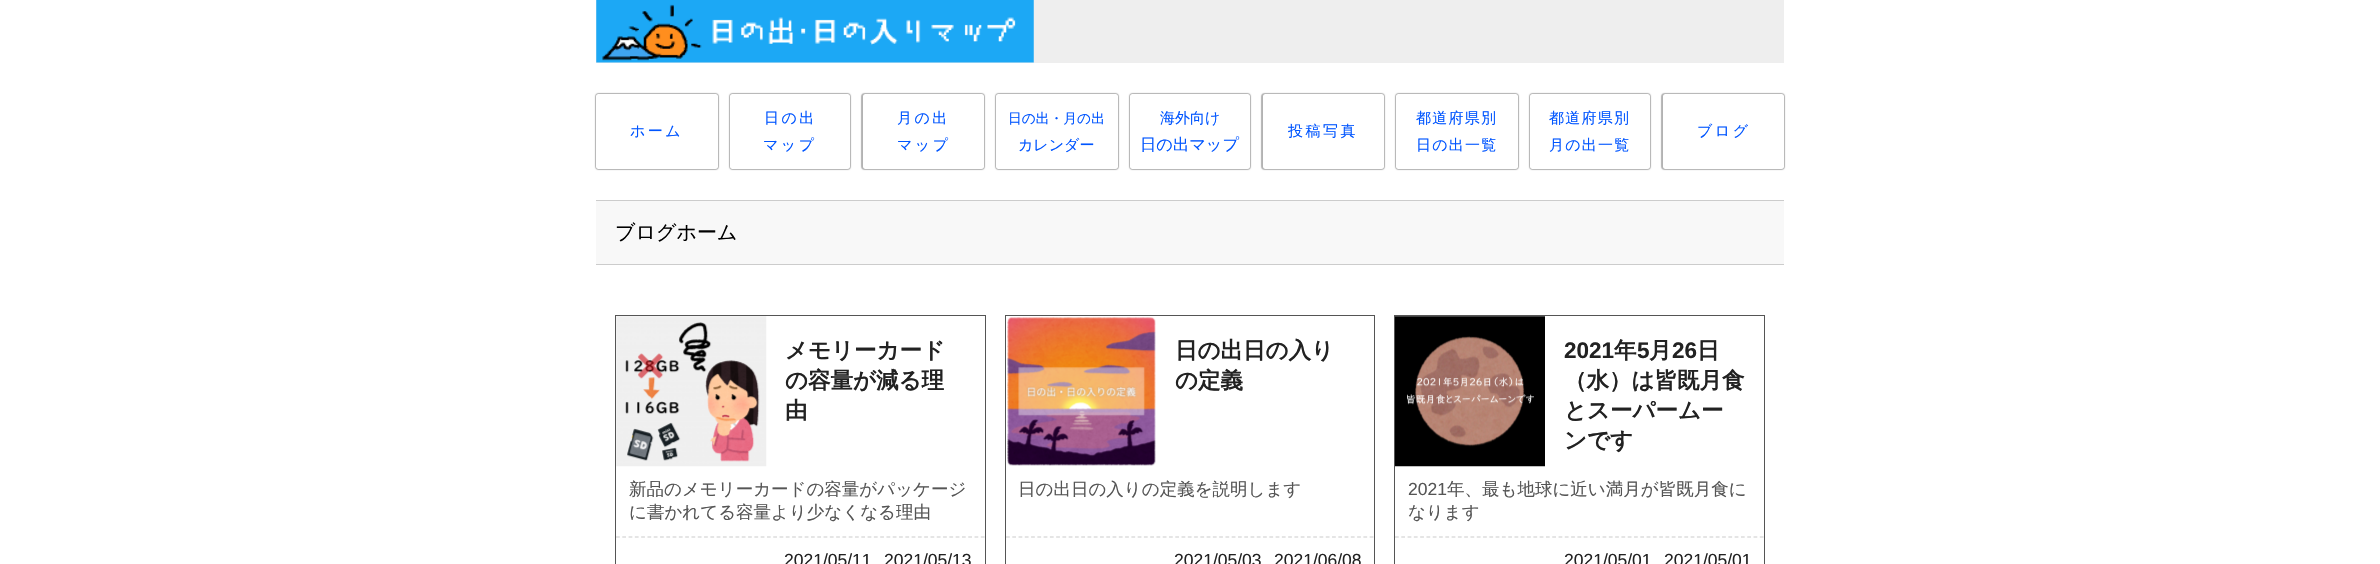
#include "include/core/SkBlurTypes.h"
#include "include/core/SkCanvas.h"
#include "include/core/SkData.h"
#include "include/core/SkFont.h"
#include "include/core/SkFontMgr.h"
#include "include/core/SkImage.h"
#include "include/core/SkMaskFilter.h"
#include "include/core/SkPaint.h"
#include "include/core/SkPathBuilder.h"
#include "include/core/SkTextBlob.h"
#include "include/effects/SkDashPathEffect.h"
#include "include/effects/SkGradientShader.h"
#include "include/utils/SkParsePath.h"

extern sk_sp<SkFontMgr> fontMgr;

void draw(SkCanvas* canvas) {
    SkPaint p;
    p.setAntiAlias(true);
    auto font = [&](const char* family, int weight, float size, bool italic = false) {
        SkFontStyle style(weight, SkFontStyle::kNormal_Width,
            italic ? SkFontStyle::kItalic_Slant : SkFontStyle::kUpright_Slant);
        SkFont result(fontMgr->matchFamilyStyle(family, style), size);
        result.setSubpixel(true);
        return result;
    };
    auto drawTracked = [&](const char* s, float x, float y, const SkFont& font, const SkPaint& ink, float letter, float word) {
        std::vector<SkGlyphID> glyphs(font.countText(s, strlen(s), SkTextEncoding::kUTF8));
        std::vector<float> xs(glyphs.size());
        font.textToGlyphs(s, strlen(s), SkTextEncoding::kUTF8, glyphs);
        font.getXPos(glyphs, xs, x);
        float extra = 0;
        for (size_t i = 0; i < glyphs.size(); i++) {
            xs[i] += extra;
            extra += letter + word * (glyphs[i] == font.unicharToGlyph(' '));
        }
        canvas->drawTextBlob(SkTextBlob::MakeFromPosHGlyphs(glyphs, xs, y, font), 0, 0, ink);
    };
    auto drawPhoto = [&](const char* path, float l, float t, float r, float b) {
        auto image = SkImages::DeferredFromEncodedData(SkData::MakeFromFileName(path));
        canvas->drawImageRect(image, SkRect::MakeLTRB(l, t, r, b), SkSamplingOptions());
    };
    canvas->clear(0xFFFFFFFF);
    p.setColor(0xFFEEEEEE);
    canvas->drawRect(SkRect::MakeLTRB(596, 0, 1784, 63), p);
    drawPhoto("media/1.png", 596, 0, 1034, 63);
    canvas->save();
    canvas->clipPath(SkPathBuilder(SkPathFillType::kEvenOdd).moveTo(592, 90).lineTo(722, 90).lineTo(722, 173).lineTo(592, 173).close().moveTo(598.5f, 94).lineTo(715.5f, 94).cubicTo(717, 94, 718, 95, 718, 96.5f).lineTo(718, 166.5f).cubicTo(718, 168, 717, 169, 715.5f, 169).lineTo(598.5f, 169).cubicTo(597, 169, 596, 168, 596, 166.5f).lineTo(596, 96.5f).cubicTo(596, 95, 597, 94, 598.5f, 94).close().detach(), true);
    p.setColor(0x4D000000);
    p.setMaskFilter(SkMaskFilter::MakeBlur(kNormal_SkBlurStyle, 0.5f));
    canvas->drawRoundRect(SkRect::MakeLTRB(595, 93, 719, 170), 4, 4, p);
    p.setMaskFilter(nullptr);
    canvas->restore();
    auto font1 = font("WenQuanYi Zen Hei", 500, 15);
    p.setColor(0xFF0055FF);
    drawTracked("ホーム", 630, 136, font1, p, 2.5f, 0);
    canvas->save();
    canvas->clipPath(SkPathBuilder(SkPathFillType::kEvenOdd).moveTo(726, 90).lineTo(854, 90).lineTo(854, 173).lineTo(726, 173).close().moveTo(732.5f, 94).lineTo(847.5f, 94).cubicTo(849, 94, 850, 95, 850, 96.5f).lineTo(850, 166.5f).cubicTo(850, 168, 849, 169, 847.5f, 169).lineTo(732.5f, 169).cubicTo(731, 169, 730, 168, 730, 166.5f).lineTo(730, 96.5f).cubicTo(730, 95, 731, 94, 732.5f, 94).close().detach(), true);
    p.setColor(0x4D000000);
    p.setMaskFilter(SkMaskFilter::MakeBlur(kNormal_SkBlurStyle, 0.5f));
    canvas->drawRoundRect(SkRect::MakeLTRB(729, 93, 851, 170), 4, 4, p);
    p.setMaskFilter(nullptr);
    canvas->restore();
    p.setColor(0xFF0055FF);
    drawTracked("日の出", 764, 123, font1, p, 2.5f, 0);
    drawTracked("マップ", 763, 150, font1, p, 2.5f, 0);
    canvas->save();
    canvas->clipPath(SkPathBuilder(SkPathFillType::kEvenOdd).moveTo(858, 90).lineTo(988, 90).lineTo(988, 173).lineTo(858, 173).close().moveTo(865.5f, 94).lineTo(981.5f, 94).cubicTo(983, 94, 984, 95, 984, 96.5f).lineTo(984, 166.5f).cubicTo(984, 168, 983, 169, 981.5f, 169).lineTo(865.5f, 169).cubicTo(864, 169, 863, 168, 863, 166.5f).lineTo(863, 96.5f).cubicTo(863, 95, 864, 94, 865.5f, 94).close().detach(), true);
    p.setColor(0x4D000000);
    p.setMaskFilter(SkMaskFilter::MakeBlur(kNormal_SkBlurStyle, 0.5f));
    canvas->drawRoundRect(SkRect::MakeLTRB(861, 93, 985, 170), 4, 4, p);
    p.setMaskFilter(nullptr);
    canvas->restore();
    p.setColor(0xFF0055FF);
    drawTracked("月の出", 897, 123, font1, p, 2.5f, 0);
    drawTracked("マップ", 897, 150, font1, p, 2.5f, 0);
    canvas->save();
    canvas->clipPath(SkPathBuilder(SkPathFillType::kEvenOdd).moveTo(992, 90).lineTo(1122, 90).lineTo(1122, 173).lineTo(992, 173).close().moveTo(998.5f, 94).lineTo(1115.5f, 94).cubicTo(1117, 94, 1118, 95, 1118, 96.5f).lineTo(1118, 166.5f).cubicTo(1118, 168, 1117, 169, 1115.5f, 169).lineTo(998.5f, 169).cubicTo(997, 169, 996, 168, 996, 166.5f).lineTo(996, 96.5f).cubicTo(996, 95, 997, 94, 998.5f, 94).close().detach(), true);
    p.setColor(0x4D000000);
    p.setMaskFilter(SkMaskFilter::MakeBlur(kNormal_SkBlurStyle, 0.5f));
    canvas->drawRoundRect(SkRect::MakeLTRB(995, 93, 1119, 170), 4, 4, p);
    p.setMaskFilter(nullptr);
    canvas->restore();
    auto font2 = font("WenQuanYi Zen Hei", 500, 13.75f);
    p.setColor(0xFF0055FF);
    canvas->drawString("日の出・月の出", 1008, 123, font2, p);
    canvas->drawString("カレンダー", 1018, 150, font1, p);
    canvas->save();
    canvas->clipPath(SkPathBuilder(SkPathFillType::kEvenOdd).moveTo(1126, 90).lineTo(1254, 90).lineTo(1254, 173).lineTo(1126, 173).close().moveTo(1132.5f, 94).lineTo(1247.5f, 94).cubicTo(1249, 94, 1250, 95, 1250, 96.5f).lineTo(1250, 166.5f).cubicTo(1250, 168, 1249, 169, 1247.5f, 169).lineTo(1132.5f, 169).cubicTo(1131, 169, 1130, 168, 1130, 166.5f).lineTo(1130, 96.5f).cubicTo(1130, 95, 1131, 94, 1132.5f, 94).close().detach(), true);
    p.setColor(0x4D000000);
    p.setMaskFilter(SkMaskFilter::MakeBlur(kNormal_SkBlurStyle, 0.5f));
    canvas->drawRoundRect(SkRect::MakeLTRB(1129, 93, 1251, 170), 4, 4, p);
    p.setMaskFilter(nullptr);
    canvas->restore();
    p.setColor(0xFF0055FF);
    canvas->drawString("海外向け", 1160, 123, font1, p);
    auto font3 = font("WenQuanYi Zen Hei", 500, 16.25f);
    canvas->drawString("日の出マップ", 1140, 150, font3, p);
    canvas->save();
    canvas->clipPath(SkPathBuilder(SkPathFillType::kEvenOdd).moveTo(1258, 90).lineTo(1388, 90).lineTo(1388, 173).lineTo(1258, 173).close().moveTo(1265.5f, 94).lineTo(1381.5f, 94).cubicTo(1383, 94, 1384, 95, 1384, 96.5f).lineTo(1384, 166.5f).cubicTo(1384, 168, 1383, 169, 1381.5f, 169).lineTo(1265.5f, 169).cubicTo(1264, 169, 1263, 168, 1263, 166.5f).lineTo(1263, 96.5f).cubicTo(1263, 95, 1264, 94, 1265.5f, 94).close().detach(), true);
    p.setColor(0x4D000000);
    p.setMaskFilter(SkMaskFilter::MakeBlur(kNormal_SkBlurStyle, 0.5f));
    canvas->drawRoundRect(SkRect::MakeLTRB(1261, 93, 1385, 170), 4, 4, p);
    p.setMaskFilter(nullptr);
    canvas->restore();
    p.setColor(0xFF0055FF);
    drawTracked("投稿写真", 1288, 136, font1, p, 2.5f, 0);
    canvas->save();
    canvas->clipPath(SkPathBuilder(SkPathFillType::kEvenOdd).moveTo(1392, 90).lineTo(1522, 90).lineTo(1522, 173).lineTo(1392, 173).close().moveTo(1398.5f, 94).lineTo(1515.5f, 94).cubicTo(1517, 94, 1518, 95, 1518, 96.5f).lineTo(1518, 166.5f).cubicTo(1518, 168, 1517, 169, 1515.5f, 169).lineTo(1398.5f, 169).cubicTo(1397, 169, 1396, 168, 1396, 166.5f).lineTo(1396, 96.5f).cubicTo(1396, 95, 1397, 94, 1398.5f, 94).close().detach(), true);
    p.setColor(0x4D000000);
    p.setMaskFilter(SkMaskFilter::MakeBlur(kNormal_SkBlurStyle, 0.5f));
    canvas->drawRoundRect(SkRect::MakeLTRB(1395, 93, 1519, 170), 4, 4, p);
    p.setMaskFilter(nullptr);
    canvas->restore();
    p.setColor(0xFF0055FF);
    drawTracked("都道府県別", 1416, 123, font1, p, 1.25f, 0);
    drawTracked("日の出一覧", 1416, 150, font1, p, 1.25f, 0);
    canvas->save();
    canvas->clipPath(SkPathBuilder(SkPathFillType::kEvenOdd).moveTo(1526, 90).lineTo(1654, 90).lineTo(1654, 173).lineTo(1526, 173).close().moveTo(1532.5f, 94).lineTo(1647.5f, 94).cubicTo(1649, 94, 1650, 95, 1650, 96.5f).lineTo(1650, 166.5f).cubicTo(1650, 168, 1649, 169, 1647.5f, 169).lineTo(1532.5f, 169).cubicTo(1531, 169, 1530, 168, 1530, 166.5f).lineTo(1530, 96.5f).cubicTo(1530, 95, 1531, 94, 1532.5f, 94).close().detach(), true);
    p.setColor(0x4D000000);
    p.setMaskFilter(SkMaskFilter::MakeBlur(kNormal_SkBlurStyle, 0.5f));
    canvas->drawRoundRect(SkRect::MakeLTRB(1529, 93, 1651, 170), 4, 4, p);
    p.setMaskFilter(nullptr);
    canvas->restore();
    p.setColor(0xFF0055FF);
    drawTracked("都道府県別", 1549, 123, font1, p, 1.25f, 0);
    drawTracked("月の出一覧", 1549, 150, font1, p, 1.25f, 0);
    canvas->save();
    canvas->clipPath(SkPathBuilder(SkPathFillType::kEvenOdd).moveTo(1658, 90).lineTo(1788, 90).lineTo(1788, 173).lineTo(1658, 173).close().moveTo(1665.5f, 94).lineTo(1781.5f, 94).cubicTo(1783, 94, 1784, 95, 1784, 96.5f).lineTo(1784, 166.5f).cubicTo(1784, 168, 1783, 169, 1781.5f, 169).lineTo(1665.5f, 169).cubicTo(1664, 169, 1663, 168, 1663, 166.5f).lineTo(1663, 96.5f).cubicTo(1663, 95, 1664, 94, 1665.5f, 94).close().detach(), true);
    p.setColor(0x4D000000);
    p.setMaskFilter(SkMaskFilter::MakeBlur(kNormal_SkBlurStyle, 0.5f));
    canvas->drawRoundRect(SkRect::MakeLTRB(1661, 93, 1785, 170), 4, 4, p);
    p.setMaskFilter(nullptr);
    canvas->restore();
    p.setColor(0xFF0055FF);
    drawTracked("ブログ", 1697, 136, font1, p, 2.5f, 0);
    {
        const struct { float l, t, r, b; SkColor color; } items[] = {
            {596, 201, 1784, 264, 0xFFF8F8F8},
            {596, 200, 1784, 201, 0xFFCCCCCC},
            {596, 264, 1784, 265, 0xFFCCCCCC},
        };
        for (auto [l, t, r, b, color] : items) {
            p.setColor(color);
            canvas->drawRect(SkRect::MakeLTRB(l, t, r, b), p);
        }
    }
    auto font4 = font("WenQuanYi Zen Hei", 500, 20);
    p.setColor(0xFF000000);
    canvas->drawString("ブログホーム", 615, 239, font4, p);
    p.setStyle(SkPaint::kStroke_Style);
    p.setStrokeWidth(1);
    p.setColor(0xFF555555);
    canvas->drawRect(SkRect::MakeLTRB(615.5f, 315.5f, 985.5f, 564.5f), p);
    drawPhoto("media/2.png", 616, 316, 767, 467);
    auto font5 = font("WenQuanYi Zen Hei", 700, 22.5f);
    p.setStyle(SkPaint::kFill_Style);
    p.setColor(0xFF222222);
    {
        const struct { const char* s; float x, y; } items[] = {
            {"メモリーカード", 785, 358},
            {"の容量が減る理", 785, 388},
            {"由", 785, 418},
        };
        for (auto [s, x, y] : items) {
            canvas->drawString(s, x, y, font5, p);
        }
    }
    auto font6 = font("WenQuanYi Zen Hei", 500, 17.5f);
    p.setColor(0xFF555555);
    canvas->drawString("新品のメモリーカードの容量がパッケージ", 629, 495, font6, p);
    canvas->drawString("に書かれてる容量より少なくなる理由", 629, 518, font6, p);
    p.setStyle(SkPaint::kStroke_Style);
    p.setStrokeWidth(1.2f);
    p.setColor(0xFFCCCCCC);
    p.setPathEffect(SkDashPathEffect::Make({{3.75f, 2.54f}}, 0));
    canvas->drawPath(SkPathBuilder().moveTo(616, 537).lineTo(985, 537).detach(), p);
    p.setPathEffect(nullptr);
    auto font7 = font("Liberation Sans", 400, 17.5f);
    p.setStyle(SkPaint::kFill_Style);
    p.setColor(0xFF222222);
    canvas->drawString("2021/05/11", 784, 566, font7, p);
    canvas->drawString("2021/05/13", 884, 566, font7, p);
    p.setStyle(SkPaint::kStroke_Style);
    p.setStrokeWidth(1);
    p.setColor(0xFF555555);
    canvas->drawRect(SkRect::MakeLTRB(1005.5f, 315.5f, 1374.5f, 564.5f), p);
    drawPhoto("media/3.png", 1007, 317, 1156, 466);
    p.setStyle(SkPaint::kFill_Style);
    p.setColor(0xFF222222);
    canvas->drawString("日の出日の入り", 1175, 358, font5, p);
    canvas->drawString("の定義", 1175, 388, font5, p);
    p.setColor(0xFF555555);
    canvas->drawString("日の出日の入りの定義を説明します", 1018, 495, font6, p);
    p.setStyle(SkPaint::kStroke_Style);
    p.setStrokeWidth(1.2f);
    p.setColor(0xFFCCCCCC);
    p.setPathEffect(SkDashPathEffect::Make({{3.75f, 2.52f}}, 0));
    canvas->drawPath(SkPathBuilder().moveTo(1006, 537).lineTo(1374, 537).detach(), p);
    p.setPathEffect(nullptr);
    p.setStyle(SkPaint::kFill_Style);
    p.setColor(0xFF222222);
    canvas->drawString("2021/05/03", 1174, 566, font7, p);
    canvas->drawString("2021/06/08", 1274, 566, font7, p);
    p.setStyle(SkPaint::kStroke_Style);
    p.setStrokeWidth(1);
    p.setColor(0xFF555555);
    canvas->drawRect(SkRect::MakeLTRB(1394.5f, 315.5f, 1764.5f, 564.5f), p);
    drawPhoto("media/4.png", 1395, 316, 1545, 467);
    auto font8 = font("Liberation Sans", 700, 22.5f);
    p.setStyle(SkPaint::kFill_Style);
    p.setColor(0xFF222222);
    canvas->drawString("2021", 1564, 358, font8, p);
    canvas->drawString("年", 1614, 358, font5, p);
    canvas->drawString("5", 1637, 358, font8, p);
    canvas->drawString("月", 1649, 358, font5, p);
    canvas->drawString("26", 1672, 358, font8, p);
    {
        const struct { const char* s; float x, y; } items[] = {
            {"日", 1697, 358},
            {"（水）は皆既月食", 1564, 388},
            {"とスーパームー", 1564, 418},
            {"ンです", 1564, 448},
        };
        for (auto [s, x, y] : items) {
            canvas->drawString(s, x, y, font5, p);
        }
    }
    p.setColor(0xFF555555);
    canvas->drawString("2021", 1408, 495, font7, p);
    canvas->drawString("年、最も地球に近い満月が皆既月食に", 1447, 495, font6, p);
    canvas->drawString("なります", 1408, 518, font6, p);
    p.setStyle(SkPaint::kStroke_Style);
    p.setStrokeWidth(1.2f);
    p.setColor(0xFFCCCCCC);
    p.setPathEffect(SkDashPathEffect::Make({{3.75f, 2.54f}}, 0));
    canvas->drawPath(SkPathBuilder().moveTo(1395, 537).lineTo(1764, 537).detach(), p);
    p.setPathEffect(nullptr);
    p.setStyle(SkPaint::kFill_Style);
    p.setColor(0xFF222222);
    canvas->drawString("2021/05/01", 1564, 566, font7, p);
    canvas->drawString("2021/05/01", 1664, 566, font7, p);
}
